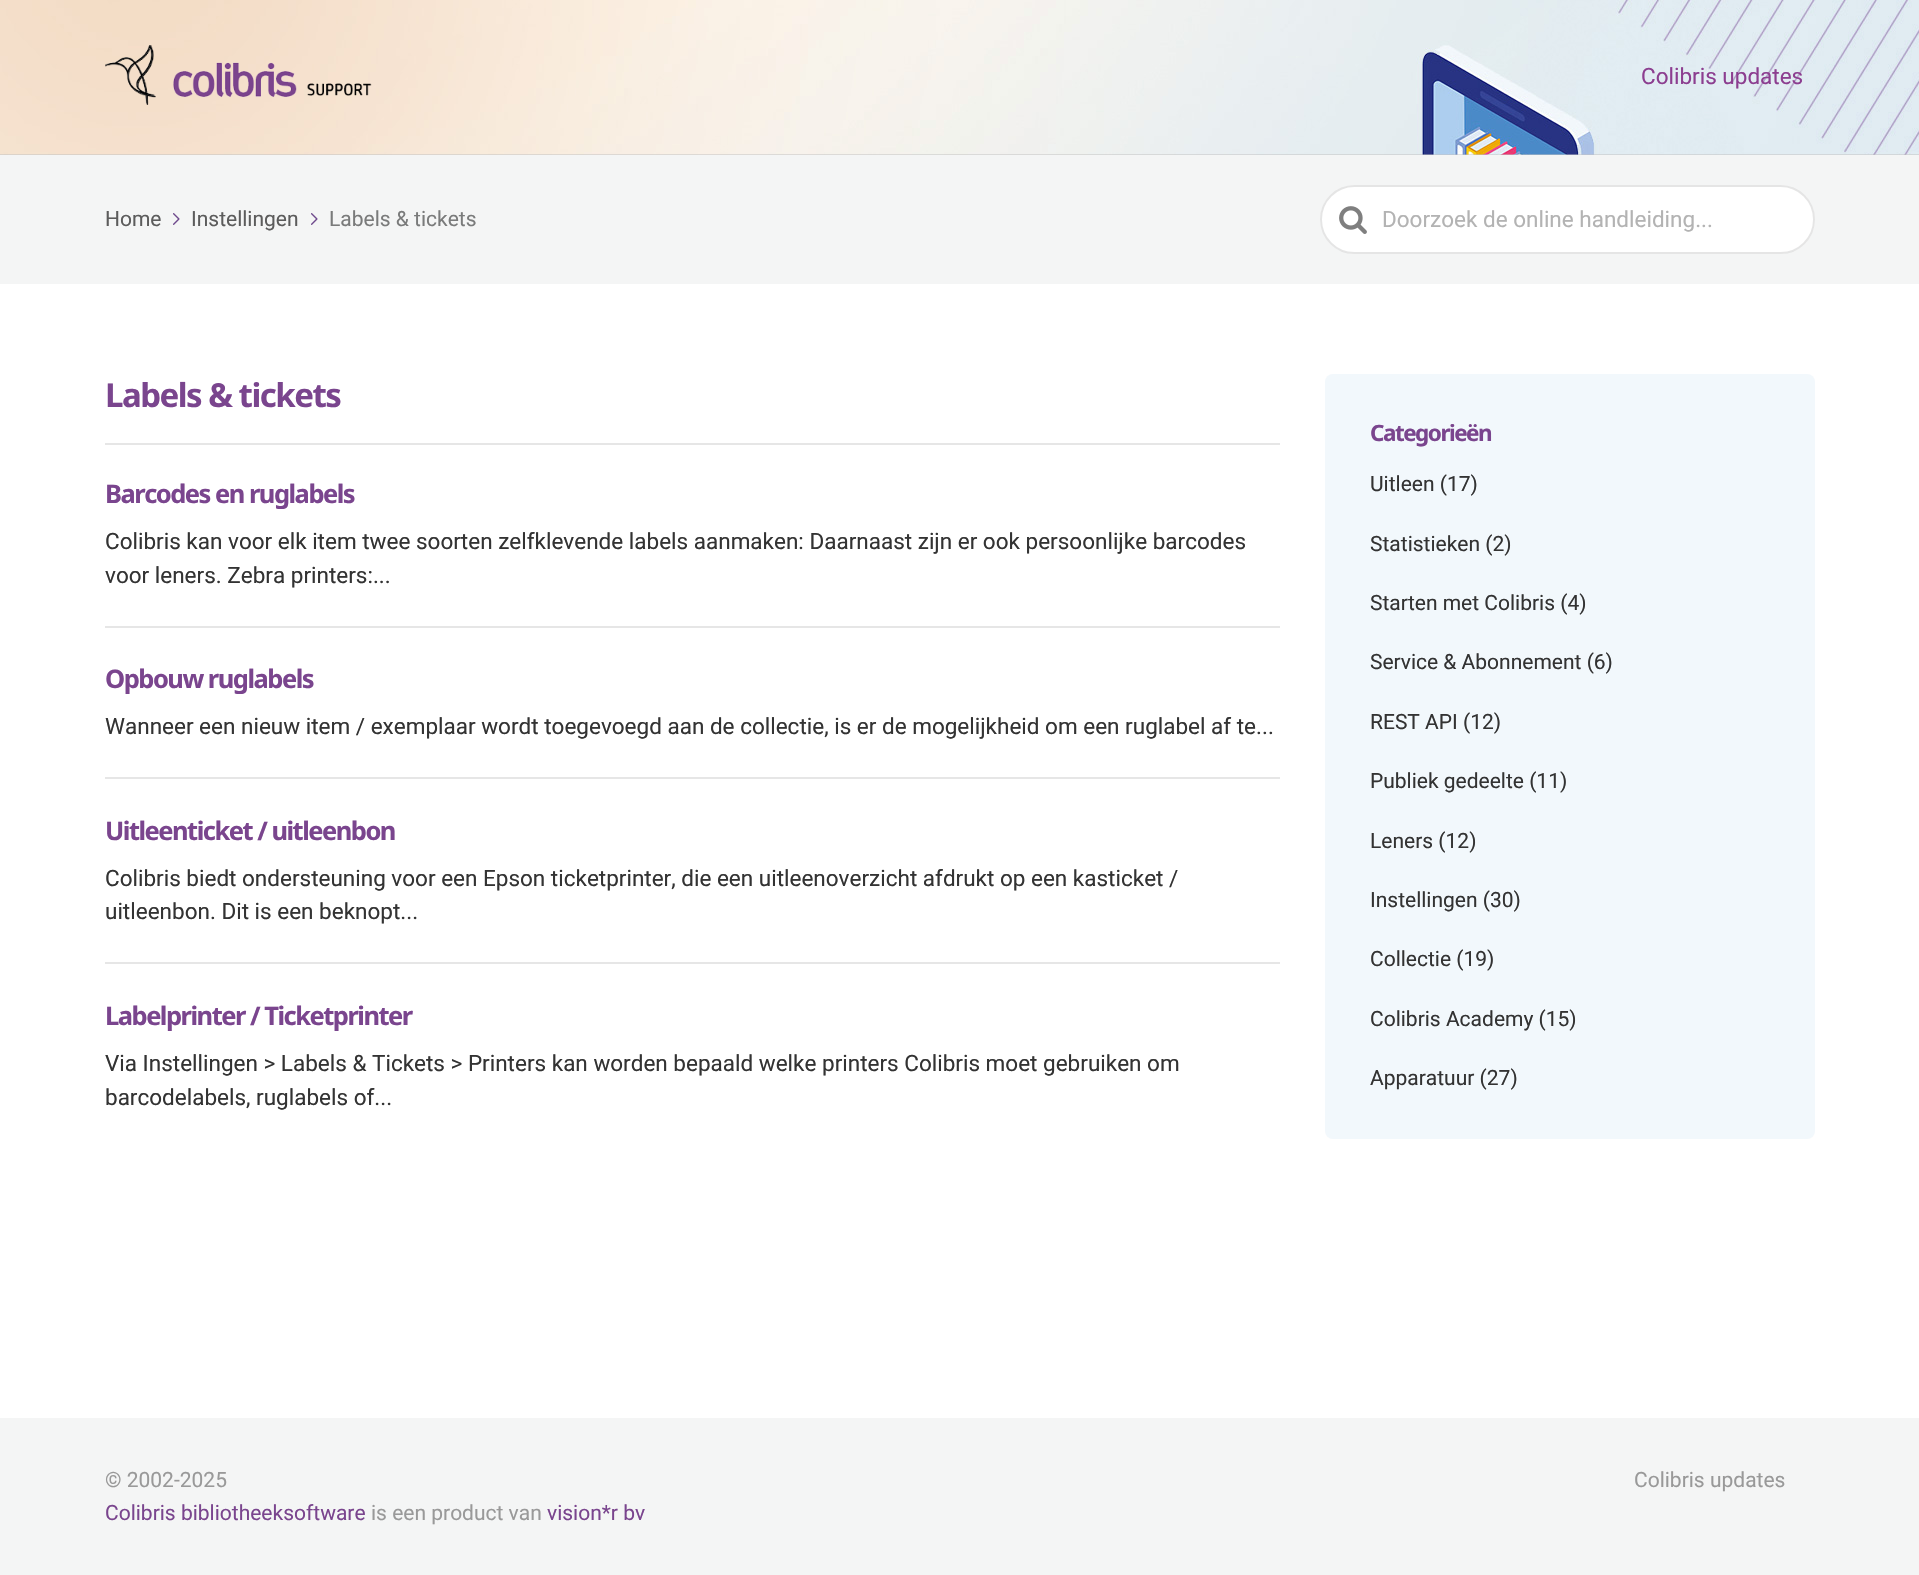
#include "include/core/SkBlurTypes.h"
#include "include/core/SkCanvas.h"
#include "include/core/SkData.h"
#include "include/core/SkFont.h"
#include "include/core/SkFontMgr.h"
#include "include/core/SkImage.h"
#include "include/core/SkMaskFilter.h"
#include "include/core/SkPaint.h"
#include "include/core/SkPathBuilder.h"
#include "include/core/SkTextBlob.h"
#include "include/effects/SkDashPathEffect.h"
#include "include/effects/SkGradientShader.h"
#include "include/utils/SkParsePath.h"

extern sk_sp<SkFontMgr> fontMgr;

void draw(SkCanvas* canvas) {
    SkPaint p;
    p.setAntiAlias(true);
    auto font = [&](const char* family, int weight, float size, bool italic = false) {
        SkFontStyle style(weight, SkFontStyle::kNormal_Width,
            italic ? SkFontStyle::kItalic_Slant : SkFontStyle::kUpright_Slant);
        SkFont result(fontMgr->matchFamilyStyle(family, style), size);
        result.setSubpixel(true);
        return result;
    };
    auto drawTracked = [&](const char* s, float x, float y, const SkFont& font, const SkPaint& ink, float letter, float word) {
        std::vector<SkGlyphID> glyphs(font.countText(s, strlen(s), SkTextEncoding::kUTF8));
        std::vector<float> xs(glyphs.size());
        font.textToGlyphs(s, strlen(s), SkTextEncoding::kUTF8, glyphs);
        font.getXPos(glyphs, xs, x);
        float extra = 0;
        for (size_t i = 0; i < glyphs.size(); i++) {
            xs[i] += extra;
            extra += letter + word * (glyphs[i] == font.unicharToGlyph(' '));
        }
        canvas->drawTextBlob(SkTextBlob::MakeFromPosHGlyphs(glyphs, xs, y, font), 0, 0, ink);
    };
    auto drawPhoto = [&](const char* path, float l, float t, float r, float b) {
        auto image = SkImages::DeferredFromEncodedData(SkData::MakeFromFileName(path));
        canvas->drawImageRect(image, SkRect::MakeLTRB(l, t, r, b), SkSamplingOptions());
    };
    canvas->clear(0xFFFFFFFF);
    p.setColor(0xFFC2C2C2);
    canvas->drawRect(SkRect::MakeLTRB(0, 154, 1919, 155), p);
    drawPhoto("media/1.png", 0, 0, 1919, 155);
    drawPhoto("media/2.png", 105, 45, 372, 105);
    auto font1 = font("Roboto", 400, 22.5f);
    p.setColor(0xFF8C3E90);
    canvas->drawString("Colibris updates", 1641, 84, font1, p);
    p.setColor(0xFFF4F5F5);
    canvas->drawRect(SkRect::MakeLTRB(0, 155, 1919, 284), p);
    auto font2 = font("Roboto", 400, 21);
    p.setColor(0xFF5C5C5C);
    canvas->drawString("Home", 105, 226, font2, p);
    drawPhoto("media/3.png", 173, 213, 180, 225);
    canvas->drawString("Instellingen", 191, 226, font2, p);
    drawPhoto("media/3.png", 311, 213, 318, 225);
    p.setColor(0xFF7A7B7B);
    canvas->drawString("Labels & tickets", 329, 226, font2, p);
    p.setColor(0xFFFFFFFF);
    canvas->drawRoundRect(SkRect::MakeLTRB(1320, 185, 1815, 254), 34.5f, 34.5f, p);
    p.setStyle(SkPaint::kStroke_Style);
    p.setStrokeWidth(2);
    p.setColor(0x80CCCCCC);
    canvas->drawRoundRect(SkRect::MakeLTRB(1321, 186, 1814, 253), 33.5f, 33.5f, p);
    drawPhoto("media/4.png", 1339, 206, 1367, 234);
    p.setStyle(SkPaint::kFill_Style);
    p.setColor(0xFFB3B3B3);
    canvas->drawString("Doorzoek de online handleiding...", 1382, 227, font1, p);
    p.setColor(0xFFE6E6E6);
    canvas->drawRect(SkRect::MakeLTRB(105, 443, 1280, 445), p);
    auto font3 = font("Noto Sans", 700, 33);
    p.setColor(0xFF7A458E);
    drawTracked("Labels & tickets", 105, 407, font3, p, -1.5f, 0);
    p.setColor(0xFFE6E6E6);
    canvas->drawRect(SkRect::MakeLTRB(105, 626, 1280, 628), p);
    auto font4 = font("Noto Sans", 700, 25.5f);
    p.setColor(0xFF7A458E);
    drawTracked("Barcodes en ruglabels", 105, 503, font4, p, -1.5f, 0);
    p.setColor(0xFF333333);
    canvas->drawString("Colibris kan voor elk item twee soorten zelfklevende labels aanmaken: Daarnaast zijn er ook persoonlijke barcodes", 105, 549, font1, p);
    canvas->drawString("voor leners. Zebra printers:...", 105, 583, font1, p);
    p.setColor(0xFFE6E6E6);
    canvas->drawRect(SkRect::MakeLTRB(105, 777, 1280, 779), p);
    p.setColor(0xFF7A458E);
    drawTracked("Opbouw ruglabels", 105, 688, font4, p, -1.5f, 0);
    p.setColor(0xFF333333);
    canvas->drawString("Wanneer een nieuw item / exemplaar wordt toegevoegd aan de collectie, is er de mogelijkheid om een ruglabel af te...", 105, 734, font1, p);
    p.setColor(0xFFE6E6E6);
    canvas->drawRect(SkRect::MakeLTRB(105, 962, 1280, 964), p);
    p.setColor(0xFF7A458E);
    drawTracked("Uitleenticket / uitleenbon", 105, 840, font4, p, -1.5f, 0);
    p.setColor(0xFF333333);
    canvas->drawString("Colibris biedt ondersteuning voor een Epson ticketprinter, die een uitleenoverzicht afdrukt op een kasticket /", 105, 886, font1, p);
    canvas->drawString("uitleenbon. Dit is een beknopt...", 105, 919, font1, p);
    p.setColor(0xFF7A458E);
    drawTracked("Labelprinter / Ticketprinter", 105, 1025, font4, p, -1.5f, 0);
    p.setColor(0xFF333333);
    canvas->drawString("Via Instellingen > Labels & Tickets > Printers kan worden bepaald welke printers Colibris moet gebruiken om", 105, 1071, font1, p);
    canvas->drawString("barcodelabels, ruglabels of...", 105, 1105, font1, p);
    p.setColor(0xFFF2F8FC);
    canvas->drawRoundRect(SkRect::MakeLTRB(1325, 374, 1815, 1139), 8, 8, p);
    auto font5 = font("Noto Sans", 700, 22.5f);
    p.setColor(0xFF7A458E);
    drawTracked("Categorieën", 1370, 441, font5, p, -1.5f, 0);
    p.setColor(0xFF333333);
    {
        const struct { const char* s; float x, y; } items[] = {
            {"Uitleen (17)", 1370, 491},
            {"Statistieken (2)", 1370, 551},
            {"Starten met Colibris (4)", 1370, 610},
            {"Service & Abonnement (6)", 1370, 669},
            {"REST API (12)", 1370, 729},
            {"Publiek gedeelte (11)", 1370, 788},
            {"Leners (12)", 1370, 848},
            {"Instellingen (30)", 1370, 907},
            {"Collectie (19)", 1370, 966},
            {"Colibris Academy (15)", 1370, 1026},
            {"Apparatuur (27)", 1370, 1085},
        };
        for (auto [s, x, y] : items) {
            canvas->drawString(s, x, y, font2, p);
        }
    }
    p.setColor(0xFFF4F5F5);
    canvas->drawRect(SkRect::MakeLTRB(0, 1418, 1919, 1575), p);
    p.setColor(0xFF999999);
    canvas->drawString("© 2002-2025", 105, 1487, font2, p);
    p.setColor(0xFF7A458E);
    canvas->drawString("Colibris bibliotheeksoftware", 105, 1520, font2, p);
    p.setColor(0xFF999999);
    canvas->drawString("is een product van", 371, 1520, font2, p);
    p.setColor(0xFF7A458E);
    canvas->drawString("vision*r bv", 547, 1520, font2, p);
    p.setColor(0xFF999999);
    canvas->drawString("Colibris updates", 1634, 1487, font2, p);
}
